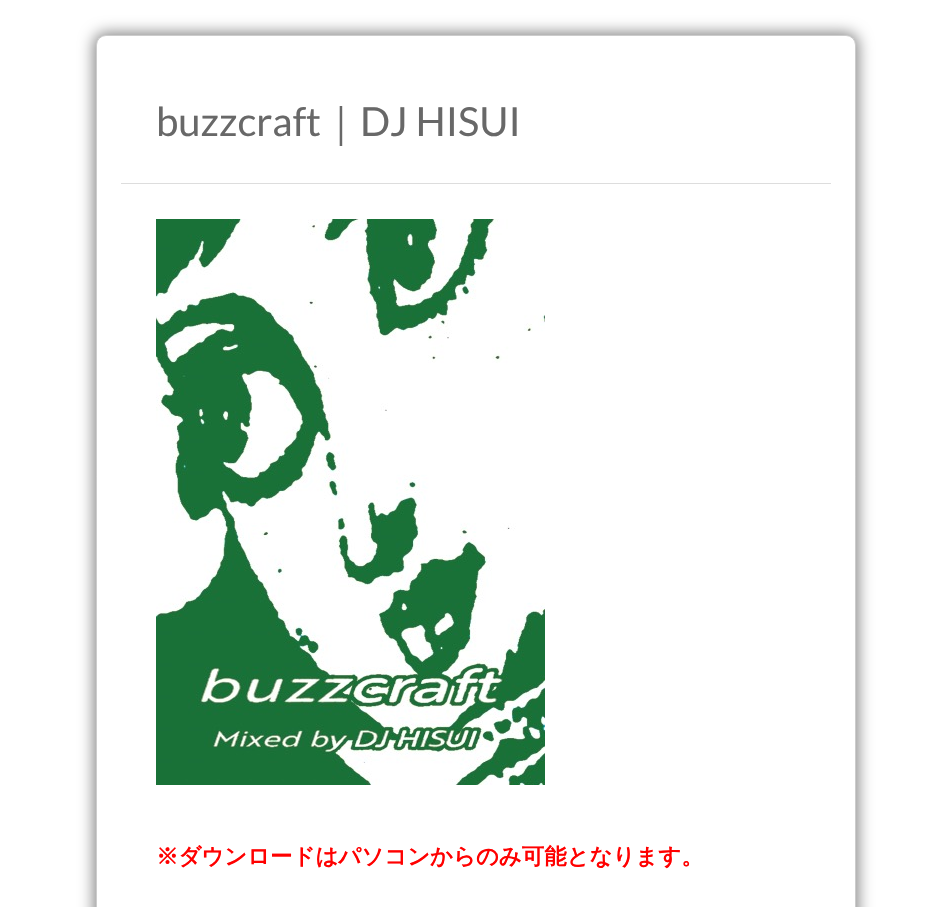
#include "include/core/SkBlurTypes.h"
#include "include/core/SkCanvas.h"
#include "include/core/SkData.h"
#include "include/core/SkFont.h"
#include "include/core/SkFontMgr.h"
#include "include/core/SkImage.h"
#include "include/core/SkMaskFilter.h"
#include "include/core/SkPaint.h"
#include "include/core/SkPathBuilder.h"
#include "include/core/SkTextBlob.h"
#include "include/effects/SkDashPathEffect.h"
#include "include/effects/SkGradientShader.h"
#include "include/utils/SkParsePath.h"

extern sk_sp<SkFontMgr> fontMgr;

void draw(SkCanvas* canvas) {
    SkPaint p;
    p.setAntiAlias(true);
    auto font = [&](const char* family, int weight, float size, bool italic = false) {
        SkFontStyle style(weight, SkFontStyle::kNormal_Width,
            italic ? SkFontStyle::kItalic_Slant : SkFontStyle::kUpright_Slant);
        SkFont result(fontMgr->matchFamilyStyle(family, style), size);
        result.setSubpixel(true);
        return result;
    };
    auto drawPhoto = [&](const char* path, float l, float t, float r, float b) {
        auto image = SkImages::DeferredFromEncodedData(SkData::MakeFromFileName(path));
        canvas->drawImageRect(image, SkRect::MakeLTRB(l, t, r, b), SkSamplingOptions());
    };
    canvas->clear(0xFFFFFFFF);
    p.setColor(0xFF808080);
    p.setMaskFilter(SkMaskFilter::MakeBlur(kNormal_SkBlurStyle, 7.5f));
    canvas->drawRoundRect(SkRect::MakeLTRB(94, 33, 858, 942), 12, 12, p);
    p.setMaskFilter(nullptr);
    p.setColor(0xFFFFFFFF);
    canvas->drawRoundRect(SkRect::MakeLTRB(96.5f, 35.5f, 855.5f, 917.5f), 9.5f, 9.5f, p);
    p.setStyle(SkPaint::kStroke_Style);
    p.setStrokeWidth(1);
    p.setColor(0xFFCCCCCC);
    canvas->drawRoundRect(SkRect::MakeLTRB(96.5f, 35.5f, 855.5f, 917.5f), 9.5f, 9.5f, p);
    p.setStyle(SkPaint::kFill_Style);
    p.setColor(0xFFDDDDDD);
    canvas->drawRect(SkRect::MakeLTRB(121, 183, 831, 184), p);
    auto font1 = font("Lato", 400, 40);
    p.setColor(0xFF686868);
    canvas->drawString("buzzcraft", 156, 136, font1, p);
    auto font2 = font("WenQuanYi Zen Hei", 500, 40);
    canvas->drawString("｜", 321, 136, font2, p);
    canvas->drawString("DJ HISUI", 360, 136, font1, p);
    drawPhoto("media/1.png", 156, 219, 545, 785);
    auto font3 = font("WenQuanYi Zen Hei", 700, 22.4f);
    p.setColor(0xFFFF0000);
    canvas->drawString("※ダウンロードはパソコンからのみ可能となります。", 156, 864, font3, p);
}
